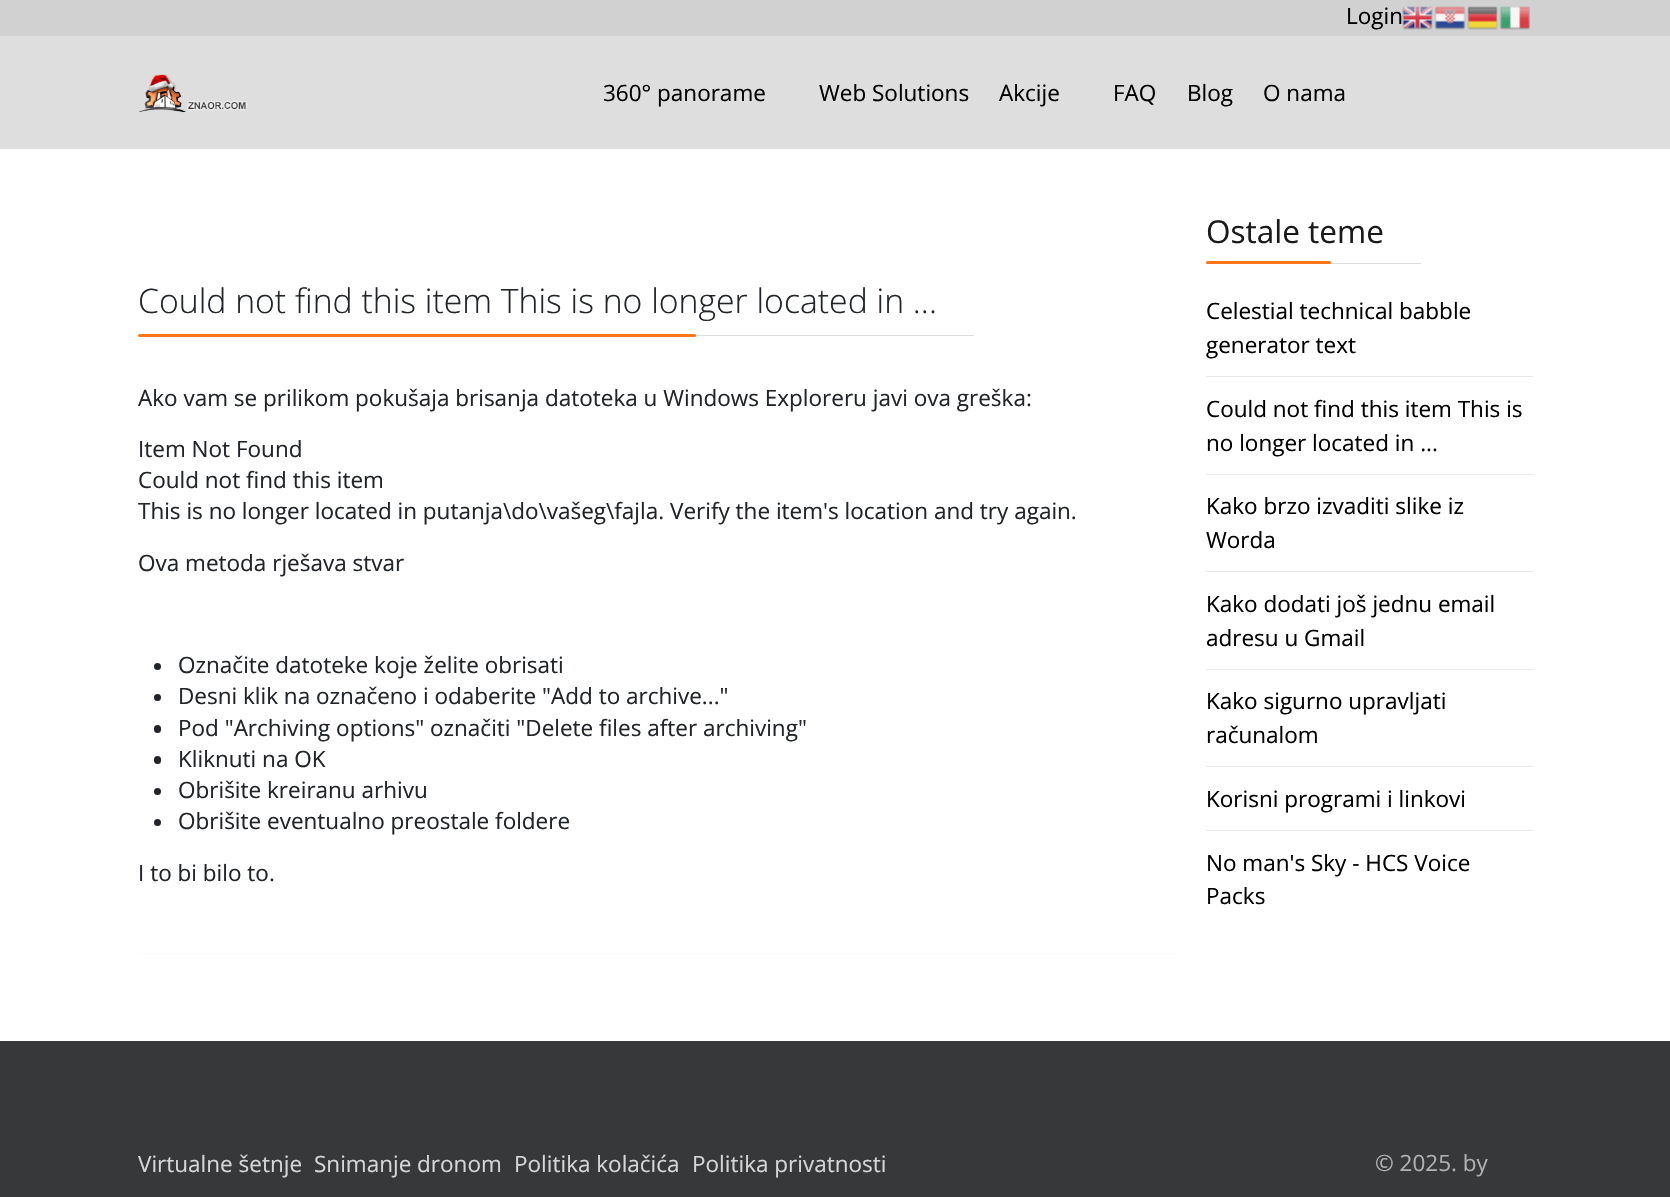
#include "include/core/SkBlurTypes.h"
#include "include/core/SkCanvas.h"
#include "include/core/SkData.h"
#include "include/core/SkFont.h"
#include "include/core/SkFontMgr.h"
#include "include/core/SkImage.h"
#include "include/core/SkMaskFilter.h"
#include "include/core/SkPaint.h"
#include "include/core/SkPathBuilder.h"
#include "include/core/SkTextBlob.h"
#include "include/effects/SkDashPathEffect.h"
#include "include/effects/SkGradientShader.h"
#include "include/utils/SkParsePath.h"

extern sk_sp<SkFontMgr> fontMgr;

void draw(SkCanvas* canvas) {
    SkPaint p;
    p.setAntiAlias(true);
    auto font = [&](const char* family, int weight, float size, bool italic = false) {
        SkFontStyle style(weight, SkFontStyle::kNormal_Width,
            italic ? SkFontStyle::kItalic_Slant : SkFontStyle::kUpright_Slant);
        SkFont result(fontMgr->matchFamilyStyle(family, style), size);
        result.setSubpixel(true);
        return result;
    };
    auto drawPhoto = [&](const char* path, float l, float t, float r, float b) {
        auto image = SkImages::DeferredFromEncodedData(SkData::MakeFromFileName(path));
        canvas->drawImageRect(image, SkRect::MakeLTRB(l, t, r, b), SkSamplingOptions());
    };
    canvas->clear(0xFFFFFFFF);
    p.setColor(0xFFD1D1D1);
    canvas->drawRect(SkRect::MakeLTRB(0, 0, 1670, 36), p);
    auto font1 = font("Open Sans", 400, 22.5f);
    p.setColor(0xFF000000);
    canvas->drawString("Login", 1346, 24, font1, p);
    drawPhoto("media/1.png", 1402, 6, 1433, 30);
    drawPhoto("media/2.png", 1434, 6, 1466, 30);
    drawPhoto("media/3.png", 1467, 6, 1498, 30);
    drawPhoto("media/4.png", 1499, 6, 1530, 30);
    p.setColor(0xFFDEDEDE);
    canvas->drawRect(SkRect::MakeLTRB(0, 36, 1670, 149), p);
    drawPhoto("media/5.png", 139, 74, 248, 113);
    p.setColor(0xFF000000);
    {
        const struct { const char* s; float x, y; } items[] = {
            {"360° panorame", 603, 101},
            {"Web Solutions", 819, 101},
            {"Akcije", 999, 101},
            {"FAQ", 1113, 101},
            {"Blog", 1187, 101},
            {"O nama", 1263, 101},
        };
        for (auto [s, x, y] : items) {
            canvas->drawString(s, x, y, font1, p);
        }
    }
    p.setColor(0xFFDDDDDD);
    canvas->drawRect(SkRect::MakeLTRB(138, 335, 974, 336), p);
    auto font2 = font("Open Sans", 300, 33.75f);
    p.setColor(0xFF212529);
    canvas->drawString("Could not find this item This is no longer located in ...", 138, 313, font2, p);
    p.setColor(0xFFFF761A);
    canvas->drawRoundRect(SkRect::MakeLTRB(138, 334, 696, 337), 1.5f, 1.5f, p);
    p.setColor(0xFF212529);
    {
        const struct { const char* s; float x, y; } items[] = {
            {"Ako vam se prilikom pokušaja brisanja datoteka u Windows Exploreru javi ova greška:", 138, 406},
            {"Item Not Found", 138, 457},
            {"Could not find this item", 138, 488},
            {"This is no longer located in putanja\\do\\vašeg\\fajla. Verify the item's location and try again.", 138, 519},
            {"Ova metoda rješava stvar", 138, 571},
        };
        for (auto [s, x, y] : items) {
            canvas->drawString(s, x, y, font1, p);
        }
    }
    canvas->drawCircle(157.5f, 666.5f, 3.5f, p);
    canvas->drawString("Označite datoteke koje želite obrisati", 178, 673, font1, p);
    canvas->drawCircle(157.5f, 697.5f, 3.5f, p);
    canvas->drawString("Desni klik na označeno i odaberite \"Add to archive...\"", 178, 704, font1, p);
    canvas->drawRoundRect(SkRect::MakeLTRB(154, 725, 161, 733), 3.5f, 3.5f, p);
    canvas->drawString("Pod \"Archiving options\" označiti \"Delete files after archiving\"", 178, 736, font1, p);
    canvas->drawRoundRect(SkRect::MakeLTRB(154, 756, 161, 764), 3.5f, 3.5f, p);
    canvas->drawString("Kliknuti na OK", 178, 767, font1, p);
    canvas->drawCircle(157.5f, 791.5f, 3.5f, p);
    canvas->drawString("Obrišite kreiranu arhivu", 178, 798, font1, p);
    canvas->drawCircle(157.5f, 822.5f, 3.5f, p);
    canvas->drawString("Obrišite eventualno preostale foldere", 178, 829, font1, p);
    canvas->drawString("I to bi bilo to.", 138, 881, font1, p);
    p.setColor(0xFFFBFBFB);
    canvas->drawRect(SkRect::MakeLTRB(138, 953, 1176, 954), p);
    p.setColor(0xFFDDDDDD);
    canvas->drawRect(SkRect::MakeLTRB(1206, 263, 1421, 264), p);
    auto font3 = font("Open Sans", 400, 31.5f);
    p.setColor(0xFF1A1A1A);
    canvas->drawString("Ostale teme", 1206, 243, font3, p);
    p.setColor(0xFFFF761A);
    canvas->drawRoundRect(SkRect::MakeLTRB(1206, 261, 1331, 264), 1.5f, 1.5f, p);
    p.setColor(0xFFE8E8E8);
    canvas->drawRect(SkRect::MakeLTRB(1206, 376, 1533, 377), p);
    p.setColor(0xFF000000);
    canvas->drawString("Celestial technical babble", 1206, 319, font1, p);
    canvas->drawString("generator text", 1206, 353, font1, p);
    p.setColor(0xFFE8E8E8);
    canvas->drawRect(SkRect::MakeLTRB(1206, 474, 1533, 475), p);
    p.setColor(0xFF000000);
    canvas->drawString("Could not find this item This is", 1206, 417, font1, p);
    canvas->drawString("no longer located in ...", 1206, 451, font1, p);
    p.setColor(0xFFE8E8E8);
    canvas->drawRect(SkRect::MakeLTRB(1206, 571, 1533, 572), p);
    p.setColor(0xFF000000);
    canvas->drawString("Kako brzo izvaditi slike iz", 1206, 514, font1, p);
    canvas->drawString("Worda", 1206, 548, font1, p);
    p.setColor(0xFFE8E8E8);
    canvas->drawRect(SkRect::MakeLTRB(1206, 669, 1533, 670), p);
    p.setColor(0xFF000000);
    canvas->drawString("Kako dodati još jednu email", 1206, 612, font1, p);
    canvas->drawString("adresu u Gmail", 1206, 646, font1, p);
    p.setColor(0xFFE8E8E8);
    canvas->drawRect(SkRect::MakeLTRB(1206, 766, 1533, 767), p);
    p.setColor(0xFF000000);
    canvas->drawString("Kako sigurno upravljati", 1206, 709, font1, p);
    canvas->drawString("računalom", 1206, 743, font1, p);
    p.setColor(0xFFE8E8E8);
    canvas->drawRect(SkRect::MakeLTRB(1206, 830, 1533, 831), p);
    p.setColor(0xFF000000);
    {
        const struct { const char* s; float x, y; } items[] = {
            {"Korisni programi i linkovi", 1206, 807},
            {"No man's Sky - HCS Voice", 1206, 871},
            {"Packs", 1206, 904},
        };
        for (auto [s, x, y] : items) {
            canvas->drawString(s, x, y, font1, p);
        }
    }
    p.setColor(0xFF363839);
    canvas->drawRect(SkRect::MakeLTRB(0, 1041, 1670, 1197), p);
    p.setColor(0xFFD6D6D6);
    {
        const struct { const char* s; float x, y; } items[] = {
            {"Virtualne šetnje", 138, 1172},
            {"Snimanje dronom", 314, 1172},
            {"Politika kolačića", 514, 1172},
            {"Politika privatnosti", 692, 1172},
        };
        for (auto [s, x, y] : items) {
            canvas->drawString(s, x, y, font1, p);
        }
    }
    p.setColor(0xFFB0B0B0);
    canvas->drawString("© 2025. by", 1375, 1171, font1, p);
}
